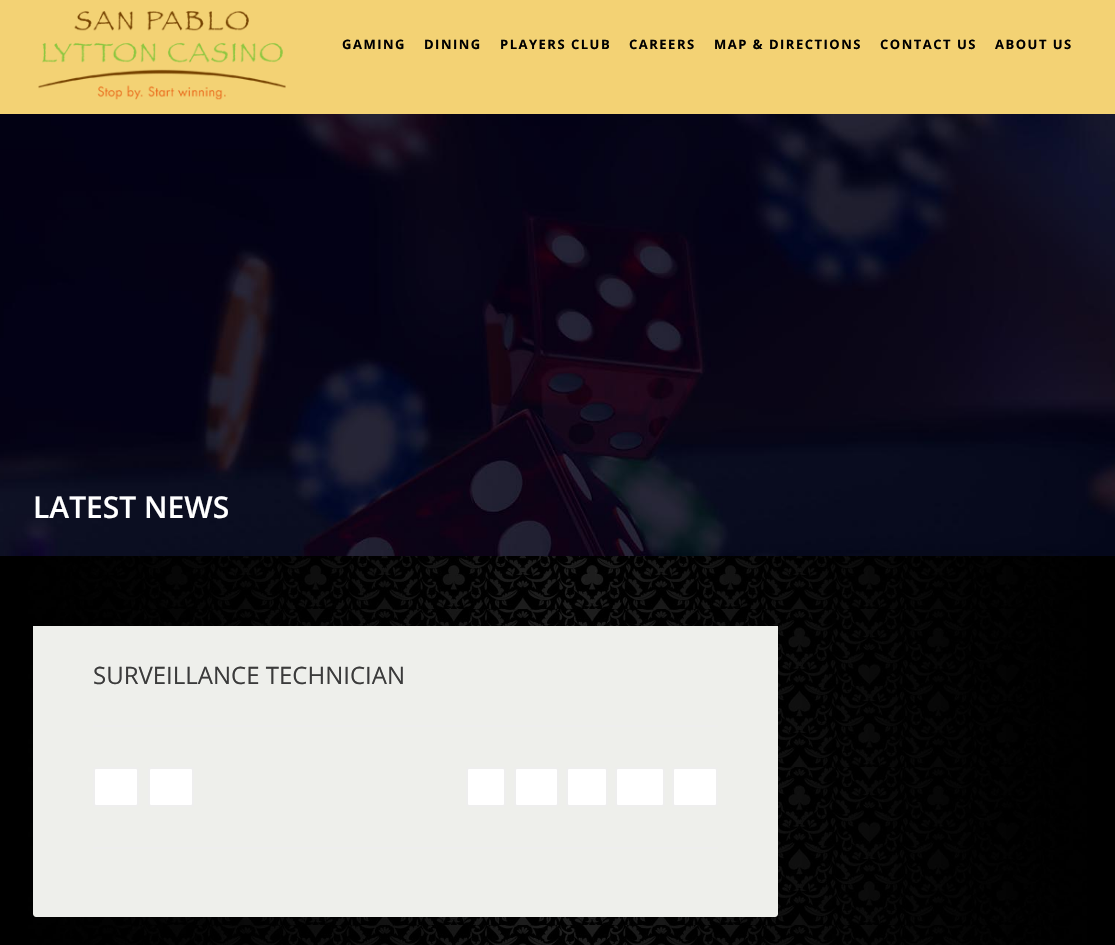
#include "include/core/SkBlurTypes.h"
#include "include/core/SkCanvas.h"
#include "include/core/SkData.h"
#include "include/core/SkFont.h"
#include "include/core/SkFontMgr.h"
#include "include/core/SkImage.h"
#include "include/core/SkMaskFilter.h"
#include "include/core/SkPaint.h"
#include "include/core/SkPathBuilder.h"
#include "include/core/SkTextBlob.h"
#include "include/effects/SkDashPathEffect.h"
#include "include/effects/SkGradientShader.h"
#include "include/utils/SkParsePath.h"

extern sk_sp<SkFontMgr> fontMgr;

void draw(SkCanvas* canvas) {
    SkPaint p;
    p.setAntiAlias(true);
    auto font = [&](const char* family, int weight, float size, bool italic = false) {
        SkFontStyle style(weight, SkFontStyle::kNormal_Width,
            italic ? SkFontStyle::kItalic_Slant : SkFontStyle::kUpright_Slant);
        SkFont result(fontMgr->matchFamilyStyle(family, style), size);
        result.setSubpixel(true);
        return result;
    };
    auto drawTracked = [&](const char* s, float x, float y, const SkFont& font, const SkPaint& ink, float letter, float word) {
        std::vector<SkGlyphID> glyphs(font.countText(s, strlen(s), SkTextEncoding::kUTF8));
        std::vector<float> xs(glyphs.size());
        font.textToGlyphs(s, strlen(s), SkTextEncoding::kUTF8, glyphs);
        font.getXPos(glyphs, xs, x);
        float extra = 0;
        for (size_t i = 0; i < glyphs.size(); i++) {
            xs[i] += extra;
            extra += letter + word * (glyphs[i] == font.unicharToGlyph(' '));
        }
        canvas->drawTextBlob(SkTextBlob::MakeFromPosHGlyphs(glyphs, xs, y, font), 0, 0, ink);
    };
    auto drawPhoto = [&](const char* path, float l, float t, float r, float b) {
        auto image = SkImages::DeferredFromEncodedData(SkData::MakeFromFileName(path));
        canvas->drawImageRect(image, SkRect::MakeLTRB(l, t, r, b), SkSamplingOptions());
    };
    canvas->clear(0xFFFFFFFF);
    drawPhoto("media/1.png", 0, 556, 1115, 945);
    p.setColor(0xFFF3D274);
    canvas->drawRect(SkRect::MakeLTRB(0, 0, 1115, 114), p);
    drawPhoto("media/2.png", 38, 11, 286, 100);
    auto font1 = font("Open Sans", 700, 13);
    p.setColor(0xFF000000);
    {
        const struct { const char* s; float x, y; } items[] = {
            {"GAMING", 342, 49},
            {"DINING", 424, 49},
            {"PLAYERS CLUB", 500, 49},
            {"CAREERS", 629, 49},
            {"MAP & DIRECTIONS", 714, 49},
            {"CONTACT US", 880, 49},
            {"ABOUT US", 995, 49},
        };
        for (auto [s, x, y] : items) {
            drawTracked(s, x, y, font1, p, 1.5f, 0);
        }
    }
    drawPhoto("media/3.png", 0, 114, 1115, 556);
    auto font2 = font("Open Sans", 600, 30);
    p.setColor(0xFFFFFFFF);
    canvas->drawString("LATEST NEWS", 33, 518, font2, p);
    p.setColor(0xFFEEEFEB);
    canvas->drawPath(SkPathBuilder().moveTo(33, 626).lineTo(778, 626).lineTo(778, 914).cubicTo(778, 915.5f, 776.5f, 917, 775, 917).lineTo(36, 917).cubicTo(34.5f, 917, 33, 915.5f, 33, 914).close().detach(), p);
    auto font3 = font("Open Sans", 400, 24);
    p.setColor(0xFF3B3B3B);
    canvas->drawString("SURVEILLANCE TECHNICIAN", 93, 684, font3, p);
    p.setColor(0xFFEEEEEE);
    canvas->drawRect(SkRect::MakeLTRB(93, 725, 718, 727), p);
    p.setColor(0xFFFFFFFF);
    canvas->drawRoundRect(SkRect::MakeLTRB(94, 768, 138, 806), 2, 2, p);
    p.setStyle(SkPaint::kStroke_Style);
    p.setStrokeWidth(2);
    p.setColor(0xFFEEEEEE);
    canvas->drawRoundRect(SkRect::MakeLTRB(94, 768, 138, 806), 2, 2, p);
    p.setStyle(SkPaint::kFill_Style);
    p.setColor(0xFFFFFFFF);
    canvas->drawRoundRect(SkRect::MakeLTRB(149, 768, 193, 806), 2, 2, p);
    p.setStyle(SkPaint::kStroke_Style);
    p.setColor(0xFFEEEEEE);
    canvas->drawRoundRect(SkRect::MakeLTRB(149, 768, 193, 806), 2, 2, p);
    p.setStyle(SkPaint::kFill_Style);
    p.setColor(0xFFFFFFFF);
    canvas->drawRoundRect(SkRect::MakeLTRB(467, 768, 505, 806), 2, 2, p);
    p.setStyle(SkPaint::kStroke_Style);
    p.setColor(0xFFEEEEEE);
    canvas->drawRoundRect(SkRect::MakeLTRB(467, 768, 505, 806), 2, 2, p);
    p.setStyle(SkPaint::kFill_Style);
    p.setColor(0xFFFFFFFF);
    canvas->drawRoundRect(SkRect::MakeLTRB(515, 768, 558, 806), 2, 2, p);
    p.setStyle(SkPaint::kStroke_Style);
    p.setColor(0xFFEEEEEE);
    canvas->drawRoundRect(SkRect::MakeLTRB(515, 768, 558, 806), 2, 2, p);
    p.setStyle(SkPaint::kFill_Style);
    p.setColor(0xFFFFFFFF);
    canvas->drawRoundRect(SkRect::MakeLTRB(567, 768, 607, 806), 2, 2, p);
    p.setStyle(SkPaint::kStroke_Style);
    p.setColor(0xFFEEEEEE);
    canvas->drawRoundRect(SkRect::MakeLTRB(567, 768, 607, 806), 2, 2, p);
    p.setStyle(SkPaint::kFill_Style);
    p.setColor(0xFFFFFFFF);
    canvas->drawRoundRect(SkRect::MakeLTRB(616, 768, 664, 806), 2, 2, p);
    p.setStyle(SkPaint::kStroke_Style);
    p.setColor(0xFFEEEEEE);
    canvas->drawRoundRect(SkRect::MakeLTRB(616, 768, 664, 806), 2, 2, p);
    p.setStyle(SkPaint::kFill_Style);
    p.setColor(0xFFFFFFFF);
    canvas->drawRoundRect(SkRect::MakeLTRB(673, 768, 717, 806), 2, 2, p);
    p.setStyle(SkPaint::kStroke_Style);
    p.setColor(0xFFEEEEEE);
    canvas->drawRoundRect(SkRect::MakeLTRB(673, 768, 717, 806), 2, 2, p);
    p.setStyle(SkPaint::kFill_Style);
    canvas->drawRect(SkRect::MakeLTRB(93, 847, 718, 849), p);
}
